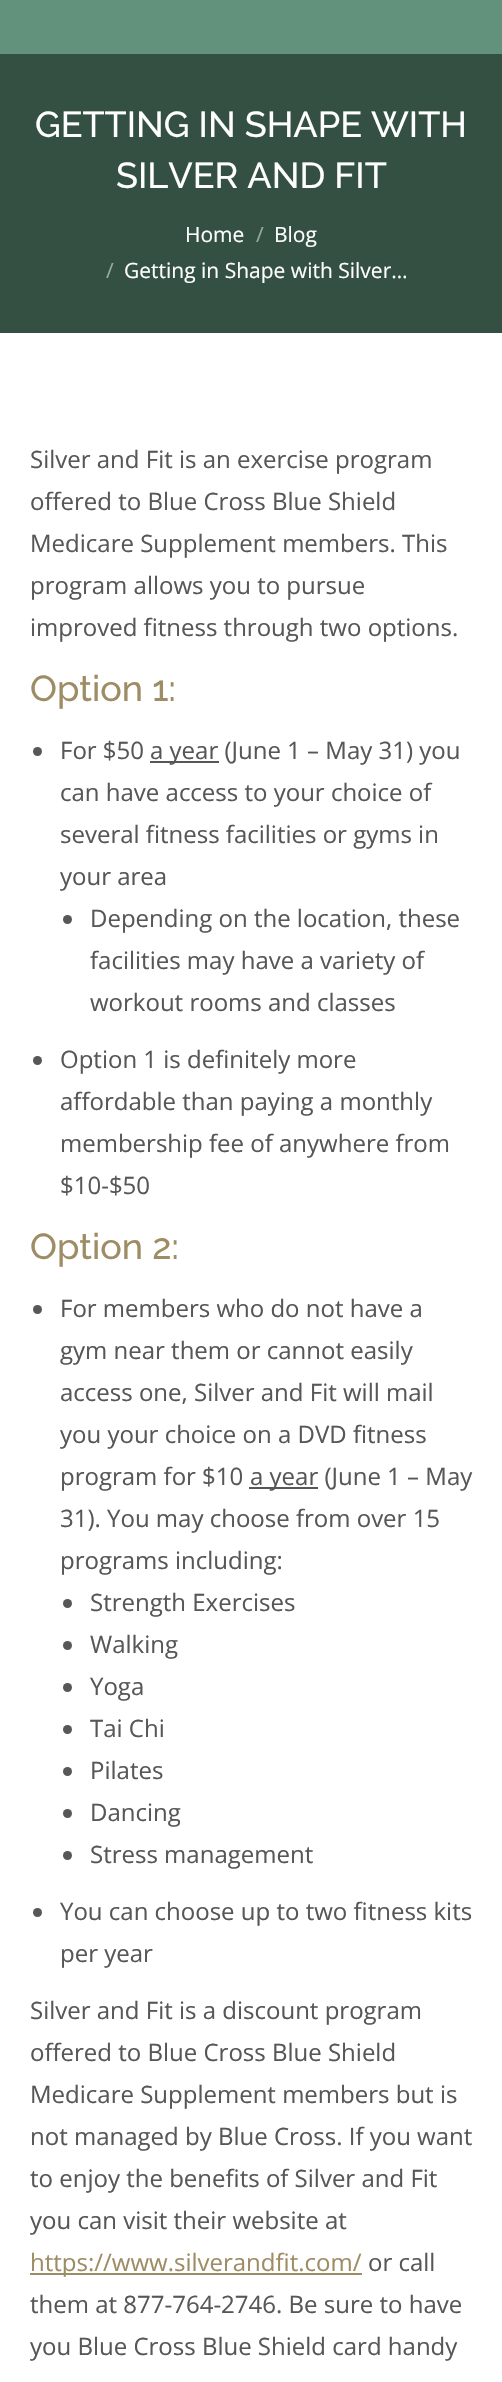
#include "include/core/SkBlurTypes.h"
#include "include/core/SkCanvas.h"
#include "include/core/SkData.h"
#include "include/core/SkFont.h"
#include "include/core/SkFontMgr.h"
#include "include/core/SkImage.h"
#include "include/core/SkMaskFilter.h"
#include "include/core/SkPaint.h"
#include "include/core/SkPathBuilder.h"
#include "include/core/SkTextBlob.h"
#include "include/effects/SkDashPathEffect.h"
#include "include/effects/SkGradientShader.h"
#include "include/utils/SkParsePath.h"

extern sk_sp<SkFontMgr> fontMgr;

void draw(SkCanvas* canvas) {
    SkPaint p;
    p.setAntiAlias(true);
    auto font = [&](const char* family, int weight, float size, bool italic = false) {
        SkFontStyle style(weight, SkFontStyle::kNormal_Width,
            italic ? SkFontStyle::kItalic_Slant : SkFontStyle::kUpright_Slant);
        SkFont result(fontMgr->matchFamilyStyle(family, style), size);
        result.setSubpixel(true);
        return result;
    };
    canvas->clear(0xFFFFFFFF);
    p.setColor(0xFF62927B);
    canvas->drawRect(SkRect::MakeLTRB(0, 0, 502, 54), p);
    p.setColor(0xFF335042);
    canvas->drawRect(SkRect::MakeLTRB(0, 54, 502, 333), p);
    auto font1 = font("Raleway", 500, 36);
    p.setColor(0xFFFFFFFF);
    canvas->drawString("GETTING IN SHAPE WITH", 35, 137, font1, p);
    canvas->drawString("SILVER AND FIT", 116, 188, font1, p);
    auto font2 = font("Open Sans", 400, 21);
    canvas->drawString("Home", 185, 242, font2, p);
    p.setColor(0xFF99A8A1);
    canvas->drawString("/", 256, 242, font2, p);
    p.setColor(0xFFFFFFFF);
    canvas->drawString("Blog", 274, 242, font2, p);
    p.setColor(0xFF99A8A1);
    canvas->drawString("/", 106, 278, font2, p);
    p.setColor(0xFFFFFFFF);
    canvas->drawString("Getting in Shape with Silver…", 124, 278, font2, p);
    auto font3 = font("Open Sans", 400, 24);
    p.setColor(0xFF575757);
    {
        const struct { const char* s; float x, y; } items[] = {
            {"Silver and Fit is an exercise program", 30, 468},
            {"offered to Blue Cross Blue Shield", 30, 510},
            {"Medicare Supplement members. This", 30, 552},
            {"program allows you to pursue", 30, 594},
            {"improved fitness through two options.", 30, 636},
        };
        for (auto [s, x, y] : items) {
            canvas->drawString(s, x, y, font3, p);
        }
    }
    p.setColor(0xFF9E8C64);
    canvas->drawString("Option 1:", 30, 701, font1, p);
    p.setColor(0xFF575757);
    canvas->drawCircle(37.5f, 751.5f, 4.5f, p);
    canvas->drawString("For $50", 60, 759, font3, p);
    canvas->drawRect(SkRect::MakeLTRB(150, 761, 219, 763), p);
    {
        const struct { const char* s; float x, y; } items[] = {
            {"a year (June 1 – May 31) you", 150, 759},
            {"can have access to your choice of", 60, 801},
            {"several fitness facilities or gyms in", 60, 843},
            {"your area", 60, 885},
        };
        for (auto [s, x, y] : items) {
            canvas->drawString(s, x, y, font3, p);
        }
    }
    canvas->drawCircle(67.5f, 919.5f, 4.5f, p);
    {
        const struct { const char* s; float x, y; } items[] = {
            {"Depending on the location, these", 90, 927},
            {"facilities may have a variety of", 90, 969},
            {"workout rooms and classes", 90, 1011},
        };
        for (auto [s, x, y] : items) {
            canvas->drawString(s, x, y, font3, p);
        }
    }
    canvas->drawCircle(37.5f, 1060.5f, 4.5f, p);
    {
        const struct { const char* s; float x, y; } items[] = {
            {"Option 1 is definitely more", 60, 1068},
            {"affordable than paying a monthly", 60, 1110},
            {"membership fee of anywhere from", 60, 1152},
            {"$10-$50", 60, 1194},
        };
        for (auto [s, x, y] : items) {
            canvas->drawString(s, x, y, font3, p);
        }
    }
    p.setColor(0xFF9E8C64);
    canvas->drawString("Option 2:", 30, 1259, font1, p);
    p.setColor(0xFF575757);
    canvas->drawCircle(37.5f, 1309.5f, 4.5f, p);
    {
        const struct { const char* s; float x, y; } items[] = {
            {"For members who do not have a", 60, 1317},
            {"gym near them or cannot easily", 60, 1359},
            {"access one, Silver and Fit will mail", 60, 1401},
            {"you your choice on a DVD fitness", 60, 1443},
            {"program for $10", 60, 1485},
        };
        for (auto [s, x, y] : items) {
            canvas->drawString(s, x, y, font3, p);
        }
    }
    canvas->drawRect(SkRect::MakeLTRB(249, 1487, 318, 1489), p);
    {
        const struct { const char* s; float x, y; } items[] = {
            {"a year (June 1 – May", 250, 1485},
            {"31). You may choose from over 15", 60, 1527},
            {"programs including:", 60, 1569},
        };
        for (auto [s, x, y] : items) {
            canvas->drawString(s, x, y, font3, p);
        }
    }
    canvas->drawCircle(67.5f, 1603.5f, 4.5f, p);
    canvas->drawString("Strength Exercises", 90, 1611, font3, p);
    canvas->drawCircle(67.5f, 1645.5f, 4.5f, p);
    canvas->drawString("Walking", 90, 1653, font3, p);
    canvas->drawCircle(67.5f, 1687.5f, 4.5f, p);
    canvas->drawString("Yoga", 90, 1695, font3, p);
    canvas->drawCircle(67.5f, 1729.5f, 4.5f, p);
    canvas->drawString("Tai Chi", 90, 1737, font3, p);
    canvas->drawCircle(67.5f, 1771.5f, 4.5f, p);
    canvas->drawString("Pilates", 90, 1779, font3, p);
    canvas->drawCircle(67.5f, 1813.5f, 4.5f, p);
    canvas->drawString("Dancing", 90, 1821, font3, p);
    canvas->drawCircle(67.5f, 1855.5f, 4.5f, p);
    canvas->drawString("Stress management", 90, 1863, font3, p);
    canvas->drawCircle(37.5f, 1912.5f, 4.5f, p);
    {
        const struct { const char* s; float x, y; } items[] = {
            {"You can choose up to two fitness kits", 60, 1920},
            {"per year", 60, 1962},
            {"Silver and Fit is a discount program", 30, 2019},
            {"offered to Blue Cross Blue Shield", 30, 2061},
            {"Medicare Supplement members but is", 30, 2103},
            {"not managed by Blue Cross. If you want", 30, 2145},
            {"to enjoy the benefits of Silver and Fit", 30, 2187},
            {"you can visit their website at", 30, 2229},
        };
        for (auto [s, x, y] : items) {
            canvas->drawString(s, x, y, font3, p);
        }
    }
    p.setColor(0xFF9E8C64);
    canvas->drawRect(SkRect::MakeLTRB(30, 2273, 362, 2275), p);
    canvas->drawString("https://www.silverandfit.com/", 30, 2271, font3, p);
    p.setColor(0xFF575757);
    {
        const struct { const char* s; float x, y; } items[] = {
            {"or call", 368, 2271},
            {"them at 877-764-2746. Be sure to have", 30, 2313},
            {"you Blue Cross Blue Shield card handy", 30, 2355},
        };
        for (auto [s, x, y] : items) {
            canvas->drawString(s, x, y, font3, p);
        }
    }
}
